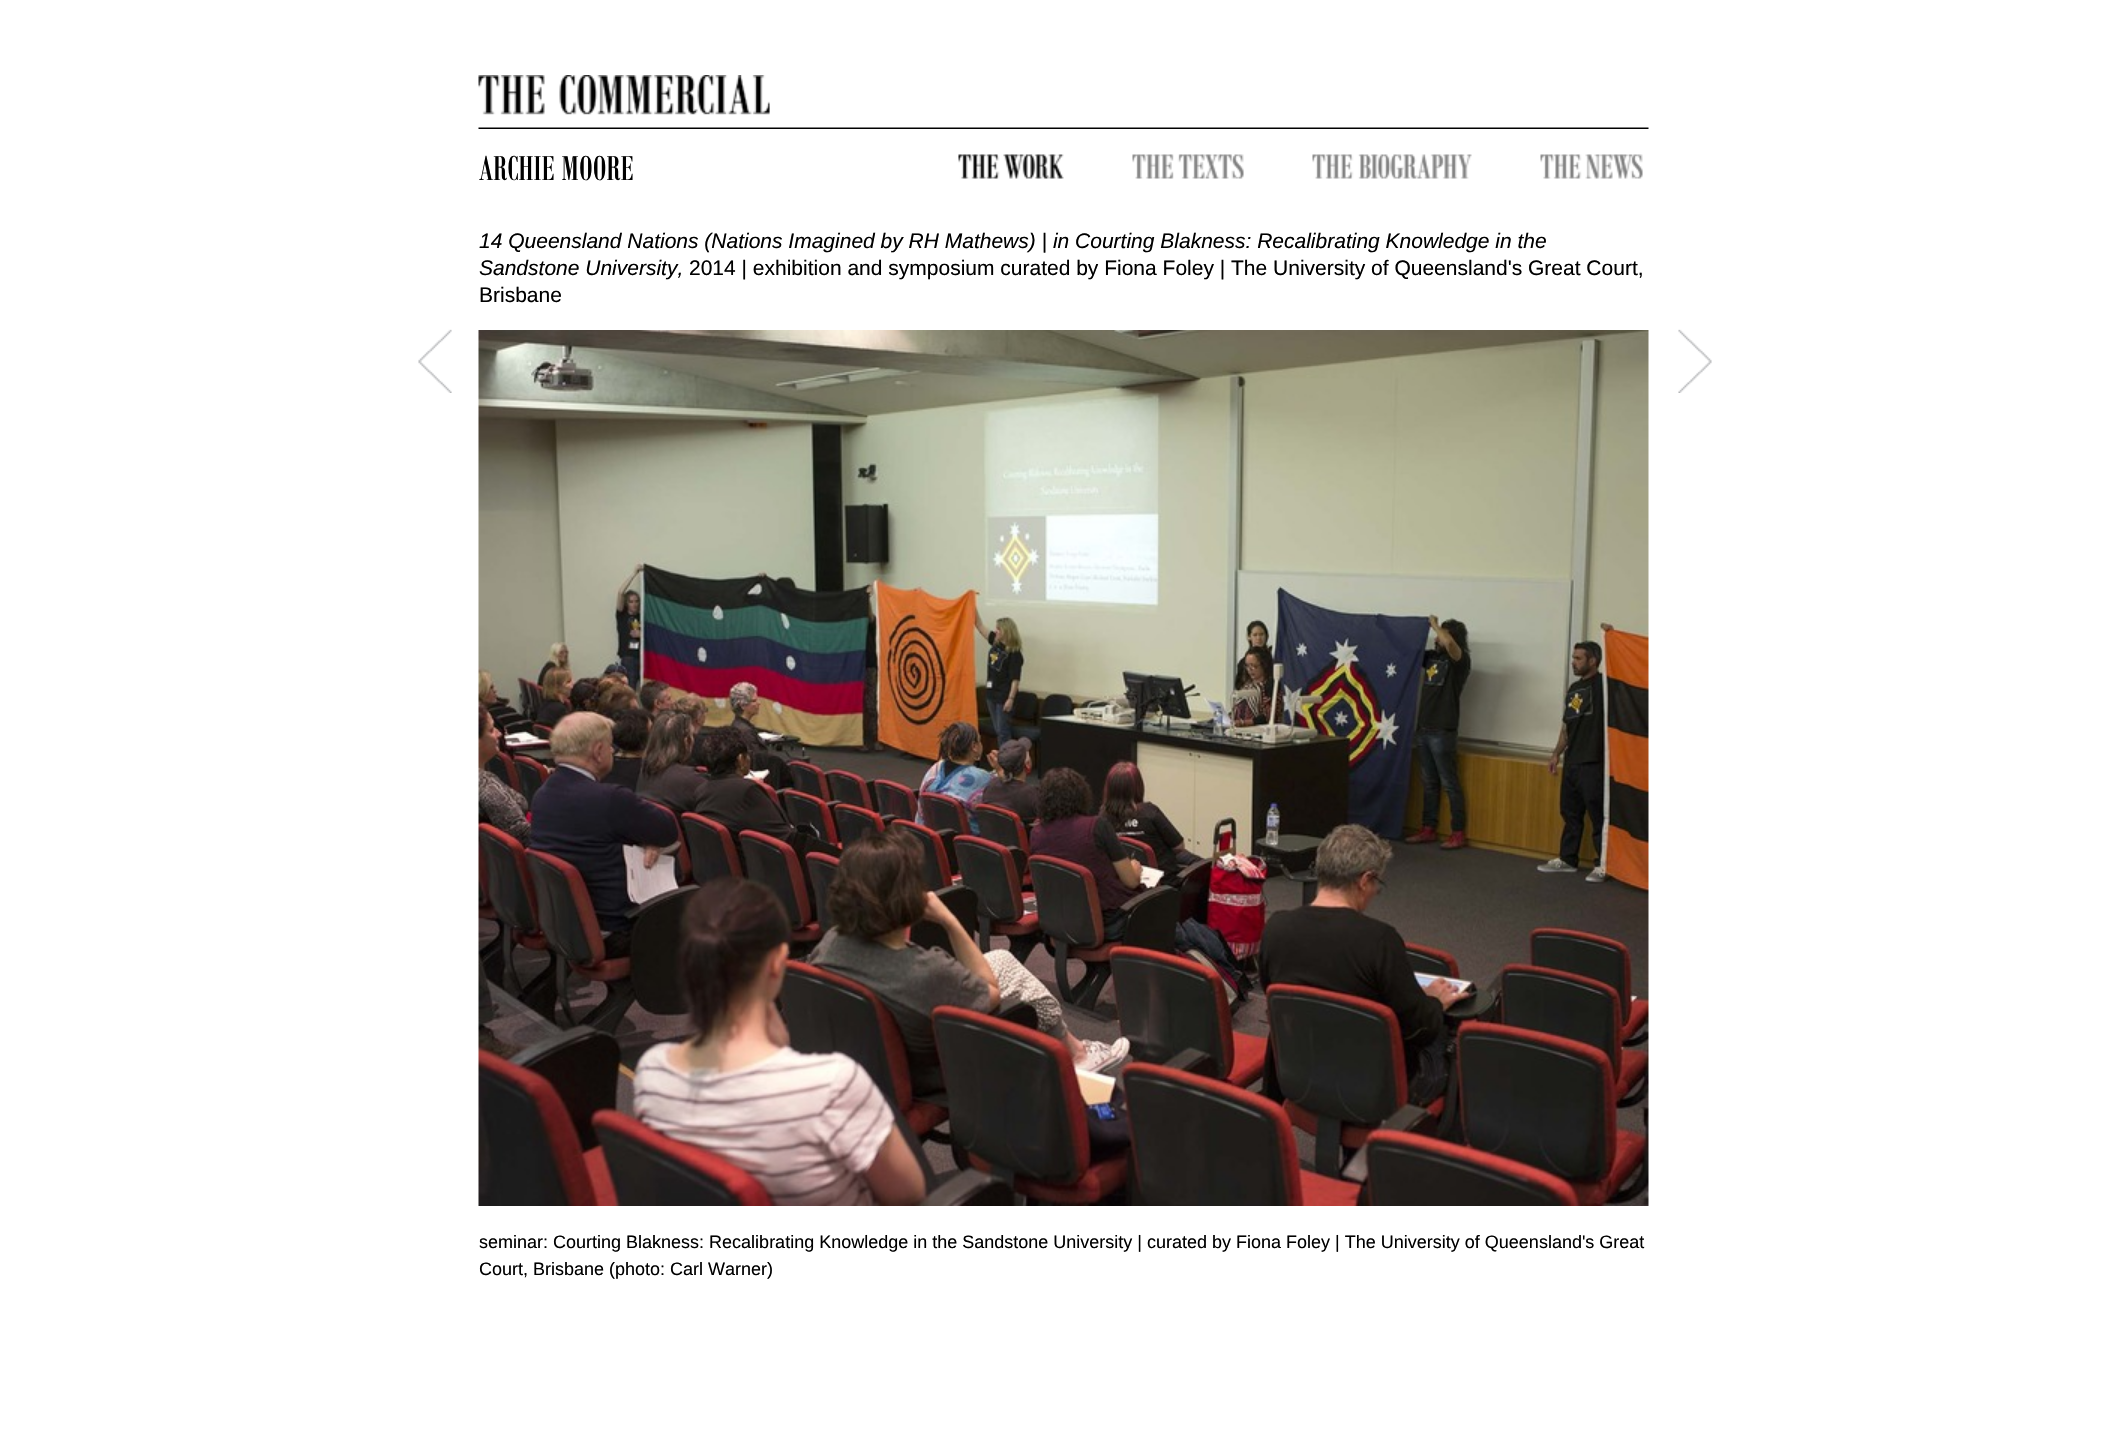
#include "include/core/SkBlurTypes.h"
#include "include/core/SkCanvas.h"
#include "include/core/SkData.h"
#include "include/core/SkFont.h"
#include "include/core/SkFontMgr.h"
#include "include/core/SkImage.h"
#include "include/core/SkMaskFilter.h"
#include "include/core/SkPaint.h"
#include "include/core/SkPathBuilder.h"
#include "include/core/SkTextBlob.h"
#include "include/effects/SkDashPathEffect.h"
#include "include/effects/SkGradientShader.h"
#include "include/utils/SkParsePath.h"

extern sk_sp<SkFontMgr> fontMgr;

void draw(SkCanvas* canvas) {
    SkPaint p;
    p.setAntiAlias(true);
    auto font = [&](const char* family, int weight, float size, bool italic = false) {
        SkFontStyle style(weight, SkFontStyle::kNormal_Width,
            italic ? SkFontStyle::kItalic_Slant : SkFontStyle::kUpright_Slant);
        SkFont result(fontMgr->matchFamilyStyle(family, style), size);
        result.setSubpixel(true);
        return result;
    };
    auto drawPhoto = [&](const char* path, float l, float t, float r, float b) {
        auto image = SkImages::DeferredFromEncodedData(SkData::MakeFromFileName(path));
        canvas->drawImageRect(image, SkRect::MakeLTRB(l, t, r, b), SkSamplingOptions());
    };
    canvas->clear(0xFFFFFFFF);
    drawPhoto("media/1.png", 478, 75, 1649, 129);
    auto font1 = font("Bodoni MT", 400, 37.5f);
    p.setColor(0xFF000000);
    canvas->drawString("ARCHIE MOORE", 479, 180, font1, p);
    drawPhoto("media/2.png", 958, 154, 1064, 179);
    drawPhoto("media/3.png", 1132, 154, 1244, 179);
    drawPhoto("media/4.png", 1312, 154, 1472, 179);
    drawPhoto("media/5.png", 1540, 154, 1643, 179);
    auto font2 = font("Liberation Sans", 400, 21, true);
    canvas->drawString("14 Queensland Nations (Nations Imagined by RH Mathews) | in Courting Blakness: Recalibrating Knowledge in the", 479, 248, font2, p);
    canvas->drawString("Sandstone University,", 479, 275, font2, p);
    auto font3 = font("Liberation Sans", 400, 21);
    canvas->drawString("2014 | exhibition and symposium curated by Fiona Foley | The University of Queensland's Great Court,", 689, 275, font3, p);
    canvas->drawString("Brisbane", 479, 302, font3, p);
    drawPhoto("media/6.png", 418, 329, 452, 393);
    drawPhoto("media/7.png", 1678, 329, 1712, 393);
    drawPhoto("media/8.png", 478, 330, 1649, 1206);
    auto font4 = font("Liberation Sans", 400, 18);
    canvas->drawString("seminar: Courting Blakness: Recalibrating Knowledge in the Sandstone University | curated by Fiona Foley | The University of Queensland's Great", 479, 1248, font4, p);
    canvas->drawString("Court, Brisbane (photo: Carl Warner)", 479, 1275, font4, p);
}
